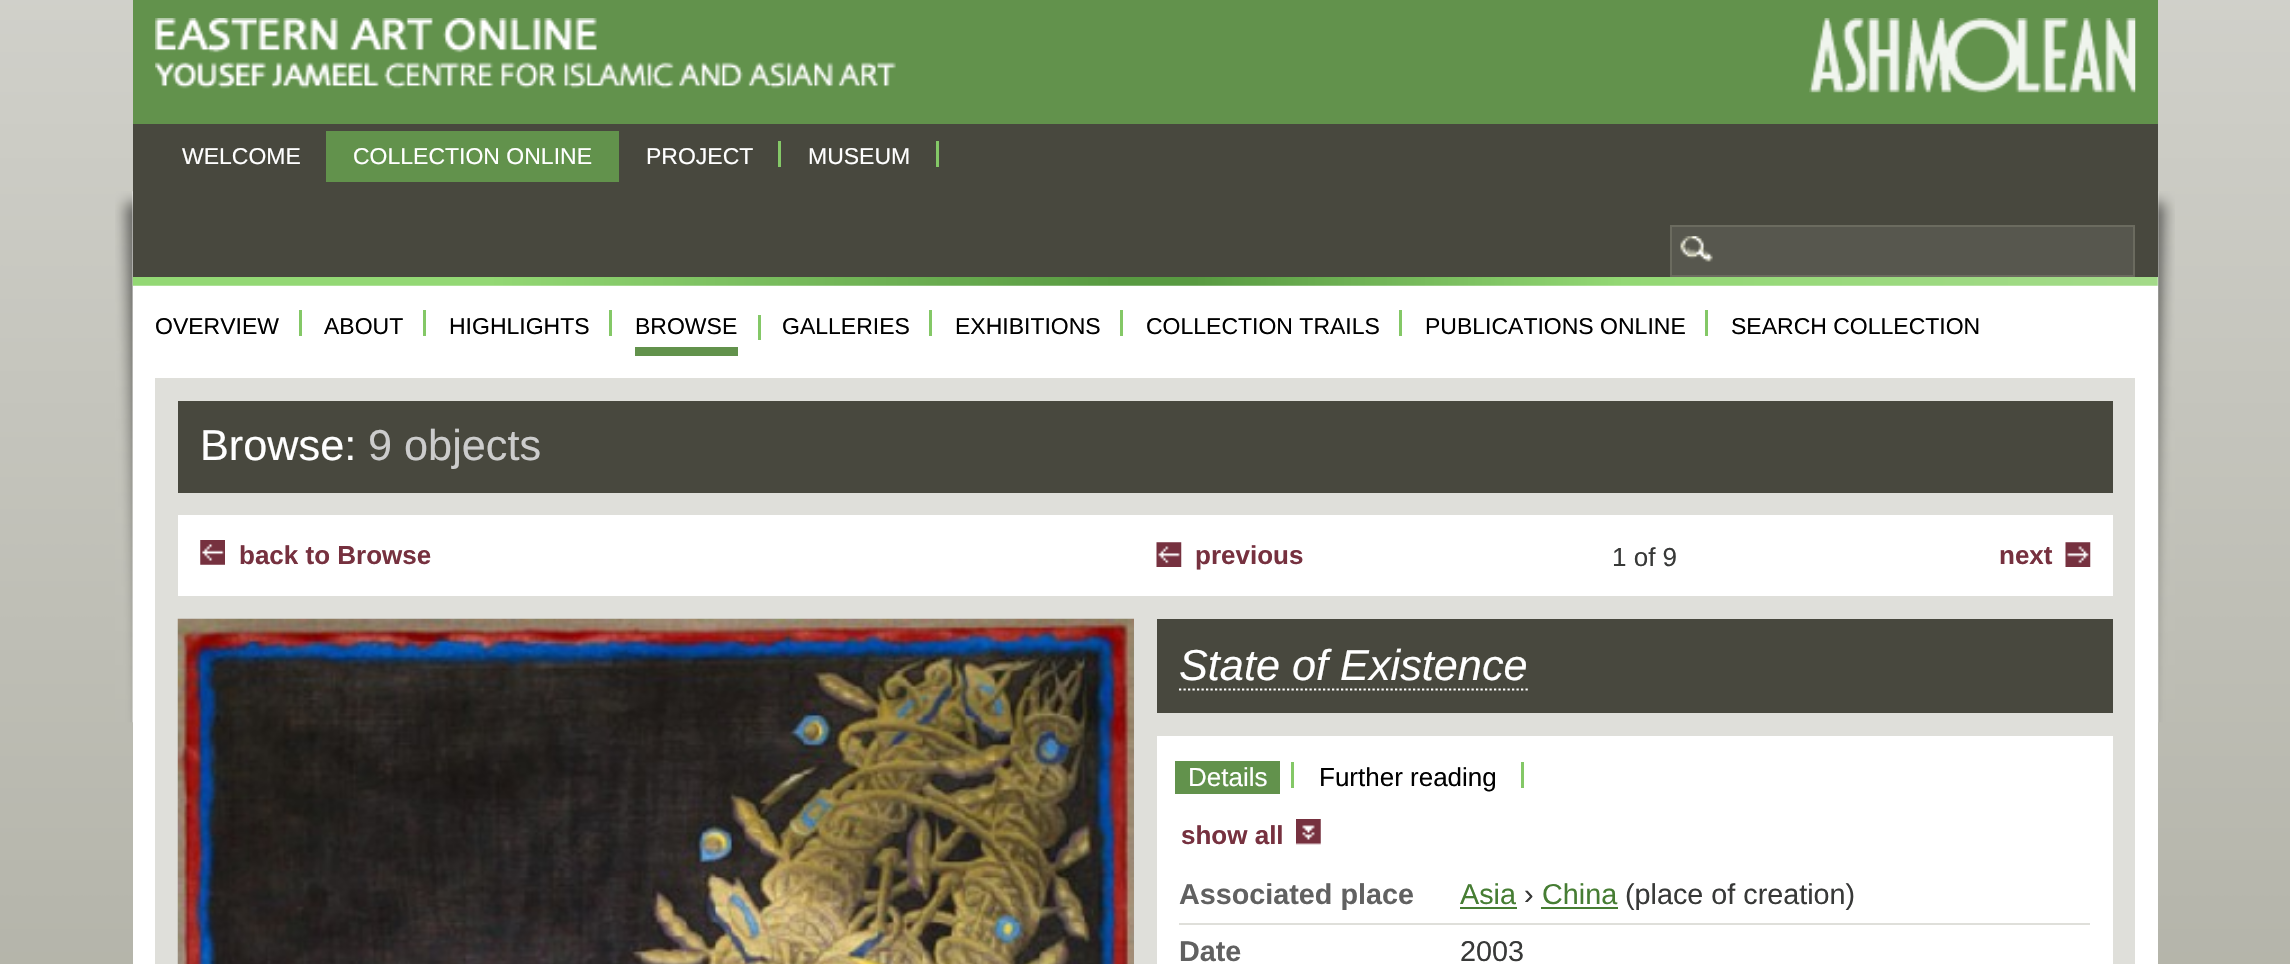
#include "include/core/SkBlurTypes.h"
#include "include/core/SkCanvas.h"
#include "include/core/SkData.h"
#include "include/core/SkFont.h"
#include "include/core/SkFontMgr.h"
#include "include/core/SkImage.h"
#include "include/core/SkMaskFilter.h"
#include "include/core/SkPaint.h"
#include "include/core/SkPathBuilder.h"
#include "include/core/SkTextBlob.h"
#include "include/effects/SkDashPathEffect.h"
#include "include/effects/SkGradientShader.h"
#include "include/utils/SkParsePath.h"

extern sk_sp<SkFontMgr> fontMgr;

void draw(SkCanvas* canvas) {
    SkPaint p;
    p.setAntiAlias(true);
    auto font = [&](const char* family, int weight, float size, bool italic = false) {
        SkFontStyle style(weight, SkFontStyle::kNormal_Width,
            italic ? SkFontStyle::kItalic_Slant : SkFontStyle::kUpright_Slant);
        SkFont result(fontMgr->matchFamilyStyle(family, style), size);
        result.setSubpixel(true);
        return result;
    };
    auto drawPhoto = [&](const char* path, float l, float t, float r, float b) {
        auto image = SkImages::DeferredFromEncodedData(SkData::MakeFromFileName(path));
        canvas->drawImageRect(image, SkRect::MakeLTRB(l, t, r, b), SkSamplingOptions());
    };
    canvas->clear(0xFFFFFFFF);
    drawPhoto("media/1.png", 0, 0, 2290, 964);
    drawPhoto("media/2.png", 115, 191, 2175, 723);
    p.setColor(0xFF62924C);
    canvas->drawRect(SkRect::MakeLTRB(133, 0, 2158, 124), p);
    drawPhoto("media/3.png", 155, 18, 896, 89);
    drawPhoto("media/4.png", 1809, 18, 2136, 93);
    p.setColor(0xFFFFFFFF);
    canvas->drawRect(SkRect::MakeLTRB(133, 277, 2158, 964), p);
    drawPhoto("media/6.png", 132, 276, 2158, 286);
    p.setColor(0xFF48483E);
    canvas->drawRect(SkRect::MakeLTRB(133, 124, 2158, 277), p);
    auto font1 = font("Liberation Sans", 400, 23);
    p.setColor(0xFFFFFFFF);
    canvas->drawString("WELCOME", 182, 164, font1, p);
    p.setColor(0xFF62924C);
    canvas->drawRect(SkRect::MakeLTRB(326, 131, 619, 182), p);
    p.setColor(0xFFFFFFFF);
    canvas->drawString("COLLECTION ONLINE", 353, 164, font1, p);
    p.setColor(0xFF84C867);
    canvas->drawRect(SkRect::MakeLTRB(778, 141, 781, 167), p);
    p.setColor(0xFFFFFFFF);
    canvas->drawString("PROJECT", 646, 164, font1, p);
    p.setColor(0xFF84C867);
    canvas->drawRect(SkRect::MakeLTRB(936, 141, 939, 167), p);
    p.setColor(0xFFFFFFFF);
    canvas->drawString("MUSEUM", 808, 164, font1, p);
    p.setColor(0xFF57574E);
    canvas->drawRect(SkRect::MakeLTRB(1672, 227, 2133, 275), p);
    drawPhoto("media/5.png", 1680, 236, 1713, 262);
    p.setStyle(SkPaint::kStroke_Style);
    p.setStrokeWidth(2);
    p.setColor(0xFF6B6B5F);
    canvas->drawRect(SkRect::MakeLTRB(1671, 226, 2134, 276), p);
    p.setStyle(SkPaint::kFill_Style);
    p.setColor(0xFF84C867);
    canvas->drawRect(SkRect::MakeLTRB(299, 310, 302, 336), p);
    p.setColor(0xFF000000);
    canvas->drawString("OVERVIEW", 155, 334, font1, p);
    p.setColor(0xFF84C867);
    canvas->drawRect(SkRect::MakeLTRB(423, 310, 426, 336), p);
    p.setColor(0xFF000000);
    canvas->drawString("ABOUT", 324, 334, font1, p);
    p.setColor(0xFF84C867);
    canvas->drawRect(SkRect::MakeLTRB(609, 310, 612, 336), p);
    p.setColor(0xFF000000);
    canvas->drawString("HIGHLIGHTS", 449, 334, font1, p);
    p.setColor(0xFF84C867);
    canvas->drawRect(SkRect::MakeLTRB(758, 315, 761, 340), p);
    p.setColor(0xFF62924C);
    canvas->drawRect(SkRect::MakeLTRB(635, 347, 738, 356), p);
    p.setColor(0xFF000000);
    canvas->drawString("BROWSE", 635, 334, font1, p);
    p.setColor(0xFF84C867);
    canvas->drawRect(SkRect::MakeLTRB(929, 310, 932, 336), p);
    p.setColor(0xFF000000);
    canvas->drawString("GALLERIES", 782, 334, font1, p);
    p.setColor(0xFF84C867);
    canvas->drawRect(SkRect::MakeLTRB(1120, 310, 1123, 336), p);
    p.setColor(0xFF000000);
    canvas->drawString("EXHIBITIONS", 955, 334, font1, p);
    p.setColor(0xFF84C867);
    canvas->drawRect(SkRect::MakeLTRB(1399, 310, 1402, 336), p);
    p.setColor(0xFF000000);
    canvas->drawString("COLLECTION TRAILS", 1146, 334, font1, p);
    p.setColor(0xFF84C867);
    canvas->drawRect(SkRect::MakeLTRB(1705, 310, 1708, 336), p);
    p.setColor(0xFF000000);
    canvas->drawString("PUBLICATIONS ONLINE", 1425, 334, font1, p);
    canvas->drawString("SEARCH COLLECTION", 1731, 334, font1, p);
    p.setColor(0xFFDFDFDA);
    canvas->drawRect(SkRect::MakeLTRB(155, 378, 2135, 964), p);
    p.setColor(0xFF48483E);
    canvas->drawRect(SkRect::MakeLTRB(178, 401, 2113, 493), p);
    auto font2 = font("Liberation Sans", 400, 43.25f);
    p.setColor(0xFFFFFFFF);
    canvas->drawString("Browse:", 200, 460, font2, p);
    p.setColor(0xFFCCCCCC);
    canvas->drawString("9 objects", 368, 460, font2, p);
    p.setColor(0xFFFFFFFF);
    canvas->drawRect(SkRect::MakeLTRB(178, 515, 2113, 596), p);
    drawPhoto("media/7.png", 200, 540, 225, 565);
    auto font3 = font("Liberation Sans", 700, 26);
    p.setColor(0xFF76313F);
    canvas->drawString("back to Browse", 239, 564, font3, p);
    drawPhoto("media/8.png", 1156, 542, 1182, 567);
    canvas->drawString("previous", 1195, 564, font3, p);
    auto font4 = font("Liberation Sans", 400, 26);
    p.setColor(0xFF383938);
    canvas->drawString("1 of 9", 1612, 566, font4, p);
    p.setColor(0xFF76313F);
    canvas->drawString("next", 1999, 564, font3, p);
    drawPhoto("media/9.png", 2065, 542, 2091, 567);
    drawPhoto("media/10.png", 177, 618, 1134, 964);
    p.setColor(0xFFFFFFFF);
    canvas->drawRect(SkRect::MakeLTRB(1157, 736, 2113, 964), p);
    p.setColor(0xFF48483E);
    canvas->drawRect(SkRect::MakeLTRB(1157, 619, 2113, 713), p);
    auto font5 = font("Liberation Sans", 400, 43.25f, true);
    p.setColor(0xFFFFFFFF);
    canvas->drawString("State of Existence", 1179, 680, font5, p);
    p.setStyle(SkPaint::kStroke_Style);
    p.setStrokeWidth(2.2f);
    p.setPathEffect(SkDashPathEffect::Make({{2.25f, 2.25f}}, 0));
    canvas->drawPath(SkPathBuilder().moveTo(1179, 689.5f).lineTo(1528, 689.5f).detach(), p);
    p.setPathEffect(nullptr);
    p.setStyle(SkPaint::kFill_Style);
    p.setColor(0xFF84C867);
    canvas->drawRect(SkRect::MakeLTRB(1291, 762, 1294, 788), p);
    p.setColor(0xFF62924C);
    canvas->drawRect(SkRect::MakeLTRB(1175, 761, 1280, 794), p);
    p.setColor(0xFFFFFFFF);
    canvas->drawString("Details", 1188, 786, font4, p);
    p.setColor(0xFF84C867);
    canvas->drawRect(SkRect::MakeLTRB(1521, 762, 1524, 788), p);
    p.setColor(0xFF000000);
    canvas->drawString("Further reading", 1319, 786, font4, p);
    p.setColor(0xFF76313F);
    canvas->drawString("show all", 1181, 844, font3, p);
    drawPhoto("media/11.png", 1296, 819, 1321, 845);
    p.setColor(0xFFDFDFDA);
    canvas->drawRect(SkRect::MakeLTRB(1179, 923, 2090, 925), p);
    auto font6 = font("Liberation Sans", 700, 28.75f);
    p.setColor(0xFF616161);
    canvas->drawString("Associated place", 1179, 904, font6, p);
    auto font7 = font("Liberation Sans", 400, 28.75f);
    p.setColor(0xFF467D33);
    canvas->drawString("Asia", 1460, 904, font7, p);
    canvas->drawRect(SkRect::MakeLTRB(1460, 907, 1517, 909), p);
    p.setColor(0xFF383938);
    canvas->drawString("›", 1524, 904, font7, p);
    p.setColor(0xFF467D33);
    canvas->drawString("China", 1542, 904, font7, p);
    canvas->drawRect(SkRect::MakeLTRB(1541, 907, 1618, 909), p);
    p.setColor(0xFF383938);
    canvas->drawString("(place of creation)", 1625, 904, font7, p);
    p.setColor(0xFF616161);
    canvas->drawString("Date", 1179, 961, font6, p);
    p.setColor(0xFF383938);
    canvas->drawString("2003", 1460, 961, font7, p);
}
